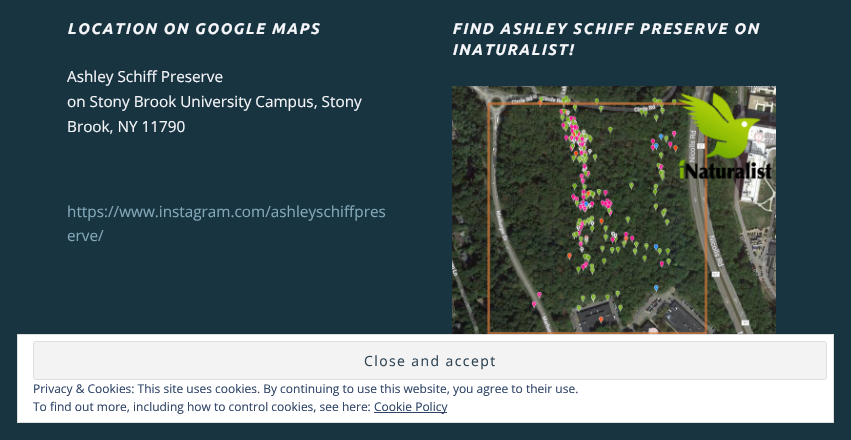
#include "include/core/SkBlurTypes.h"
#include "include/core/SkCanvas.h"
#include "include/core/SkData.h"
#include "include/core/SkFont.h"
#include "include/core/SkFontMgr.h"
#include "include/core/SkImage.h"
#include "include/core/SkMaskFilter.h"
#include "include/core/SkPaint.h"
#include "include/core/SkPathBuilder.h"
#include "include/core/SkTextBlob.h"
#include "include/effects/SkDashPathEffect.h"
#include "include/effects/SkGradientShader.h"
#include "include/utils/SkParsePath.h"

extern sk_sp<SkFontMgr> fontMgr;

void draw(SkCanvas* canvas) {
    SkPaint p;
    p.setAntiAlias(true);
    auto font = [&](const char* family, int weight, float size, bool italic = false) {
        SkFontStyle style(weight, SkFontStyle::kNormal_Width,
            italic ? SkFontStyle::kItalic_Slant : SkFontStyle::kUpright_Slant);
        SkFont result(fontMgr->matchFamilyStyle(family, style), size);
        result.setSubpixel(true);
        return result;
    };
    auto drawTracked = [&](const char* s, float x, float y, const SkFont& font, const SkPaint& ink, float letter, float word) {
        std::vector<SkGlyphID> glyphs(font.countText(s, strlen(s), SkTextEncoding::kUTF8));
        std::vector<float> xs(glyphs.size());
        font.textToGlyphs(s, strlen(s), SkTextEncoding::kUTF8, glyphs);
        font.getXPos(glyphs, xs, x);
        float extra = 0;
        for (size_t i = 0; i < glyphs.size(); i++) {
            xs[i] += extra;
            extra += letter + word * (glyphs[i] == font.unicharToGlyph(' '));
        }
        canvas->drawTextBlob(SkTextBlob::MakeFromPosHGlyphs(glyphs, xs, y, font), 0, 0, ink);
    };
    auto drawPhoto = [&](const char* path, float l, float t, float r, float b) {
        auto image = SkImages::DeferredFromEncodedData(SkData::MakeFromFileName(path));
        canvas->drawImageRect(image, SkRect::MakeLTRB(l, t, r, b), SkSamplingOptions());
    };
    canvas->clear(0xFF193441);
    auto font1 = font("Ubuntu", 700, 15.4f, true);
    p.setColor(0xFFF5F6F9);
    drawTracked("LOCATION ON GOOGLE MAPS", 67, 34, font1, p, 1.55f, 0);
    auto font2 = font("Open Sans", 400, 15.3f);
    {
        const struct { const char* s; float x, y; } items[] = {
            {"Ashley Schiff Preserve", 67, 82},
            {"on Stony Brook University Campus, Stony", 67, 107},
            {"Brook, NY 11790", 67, 132},
        };
        for (auto [s, x, y] : items) {
            canvas->drawString(s, x, y, font2, p);
        }
    }
    drawTracked("FIND ASHLEY SCHIFF PRESERVE ON", 452, 34, font1, p, 1.55f, 0);
    drawTracked("INATURALIST!", 452, 55, font1, p, 1.55f, 0);
    drawPhoto("media/1.png", 452, 86, 776, 334);
    p.setColor(0xFF82A8B9);
    canvas->drawString("https://www.instagram.com/ashleyschiffpres", 67, 217, font2, p);
    canvas->drawString("erve/", 67, 241, font2, p);
    p.setColor(0xFFFFFFFF);
    canvas->drawRect(SkRect::MakeLTRB(17.5f, 334.5f, 833.5f, 422.5f), p);
    p.setStyle(SkPaint::kStroke_Style);
    p.setStrokeWidth(1);
    p.setColor(0xFFDEDEDE);
    canvas->drawRect(SkRect::MakeLTRB(17.5f, 334.5f, 833.5f, 422.5f), p);
    p.setStyle(SkPaint::kFill_Style);
    p.setColor(0xFFF3F3F3);
    canvas->drawRoundRect(SkRect::MakeLTRB(33.5f, 341.5f, 826.5f, 379.5f), 2.5f, 2.5f, p);
    p.setStyle(SkPaint::kStroke_Style);
    p.setColor(0xFFDEDEDE);
    canvas->drawRoundRect(SkRect::MakeLTRB(33.5f, 341.5f, 826.5f, 379.5f), 2.5f, 2.5f, p);
    auto font3 = font("Open Sans", 400, 14);
    p.setStyle(SkPaint::kFill_Style);
    p.setColor(0xFF2E4453);
    drawTracked("Close and accept", 364, 366, font3, p, 1.4f, 0);
    auto font4 = font("Open Sans", 400, 12);
    p.setColor(0xFF2E4467);
    canvas->drawString("Privacy & Cookies: This site uses cookies. By continuing to use this website, you agree to their use.", 33, 393, font4, p);
    canvas->drawString("To find out more, including how to control cookies, see here:", 33, 411, font4, p);
    canvas->drawRect(SkRect::MakeLTRB(374, 412, 447, 413), p);
    canvas->drawString("Cookie Policy", 374, 411, font4, p);
}
